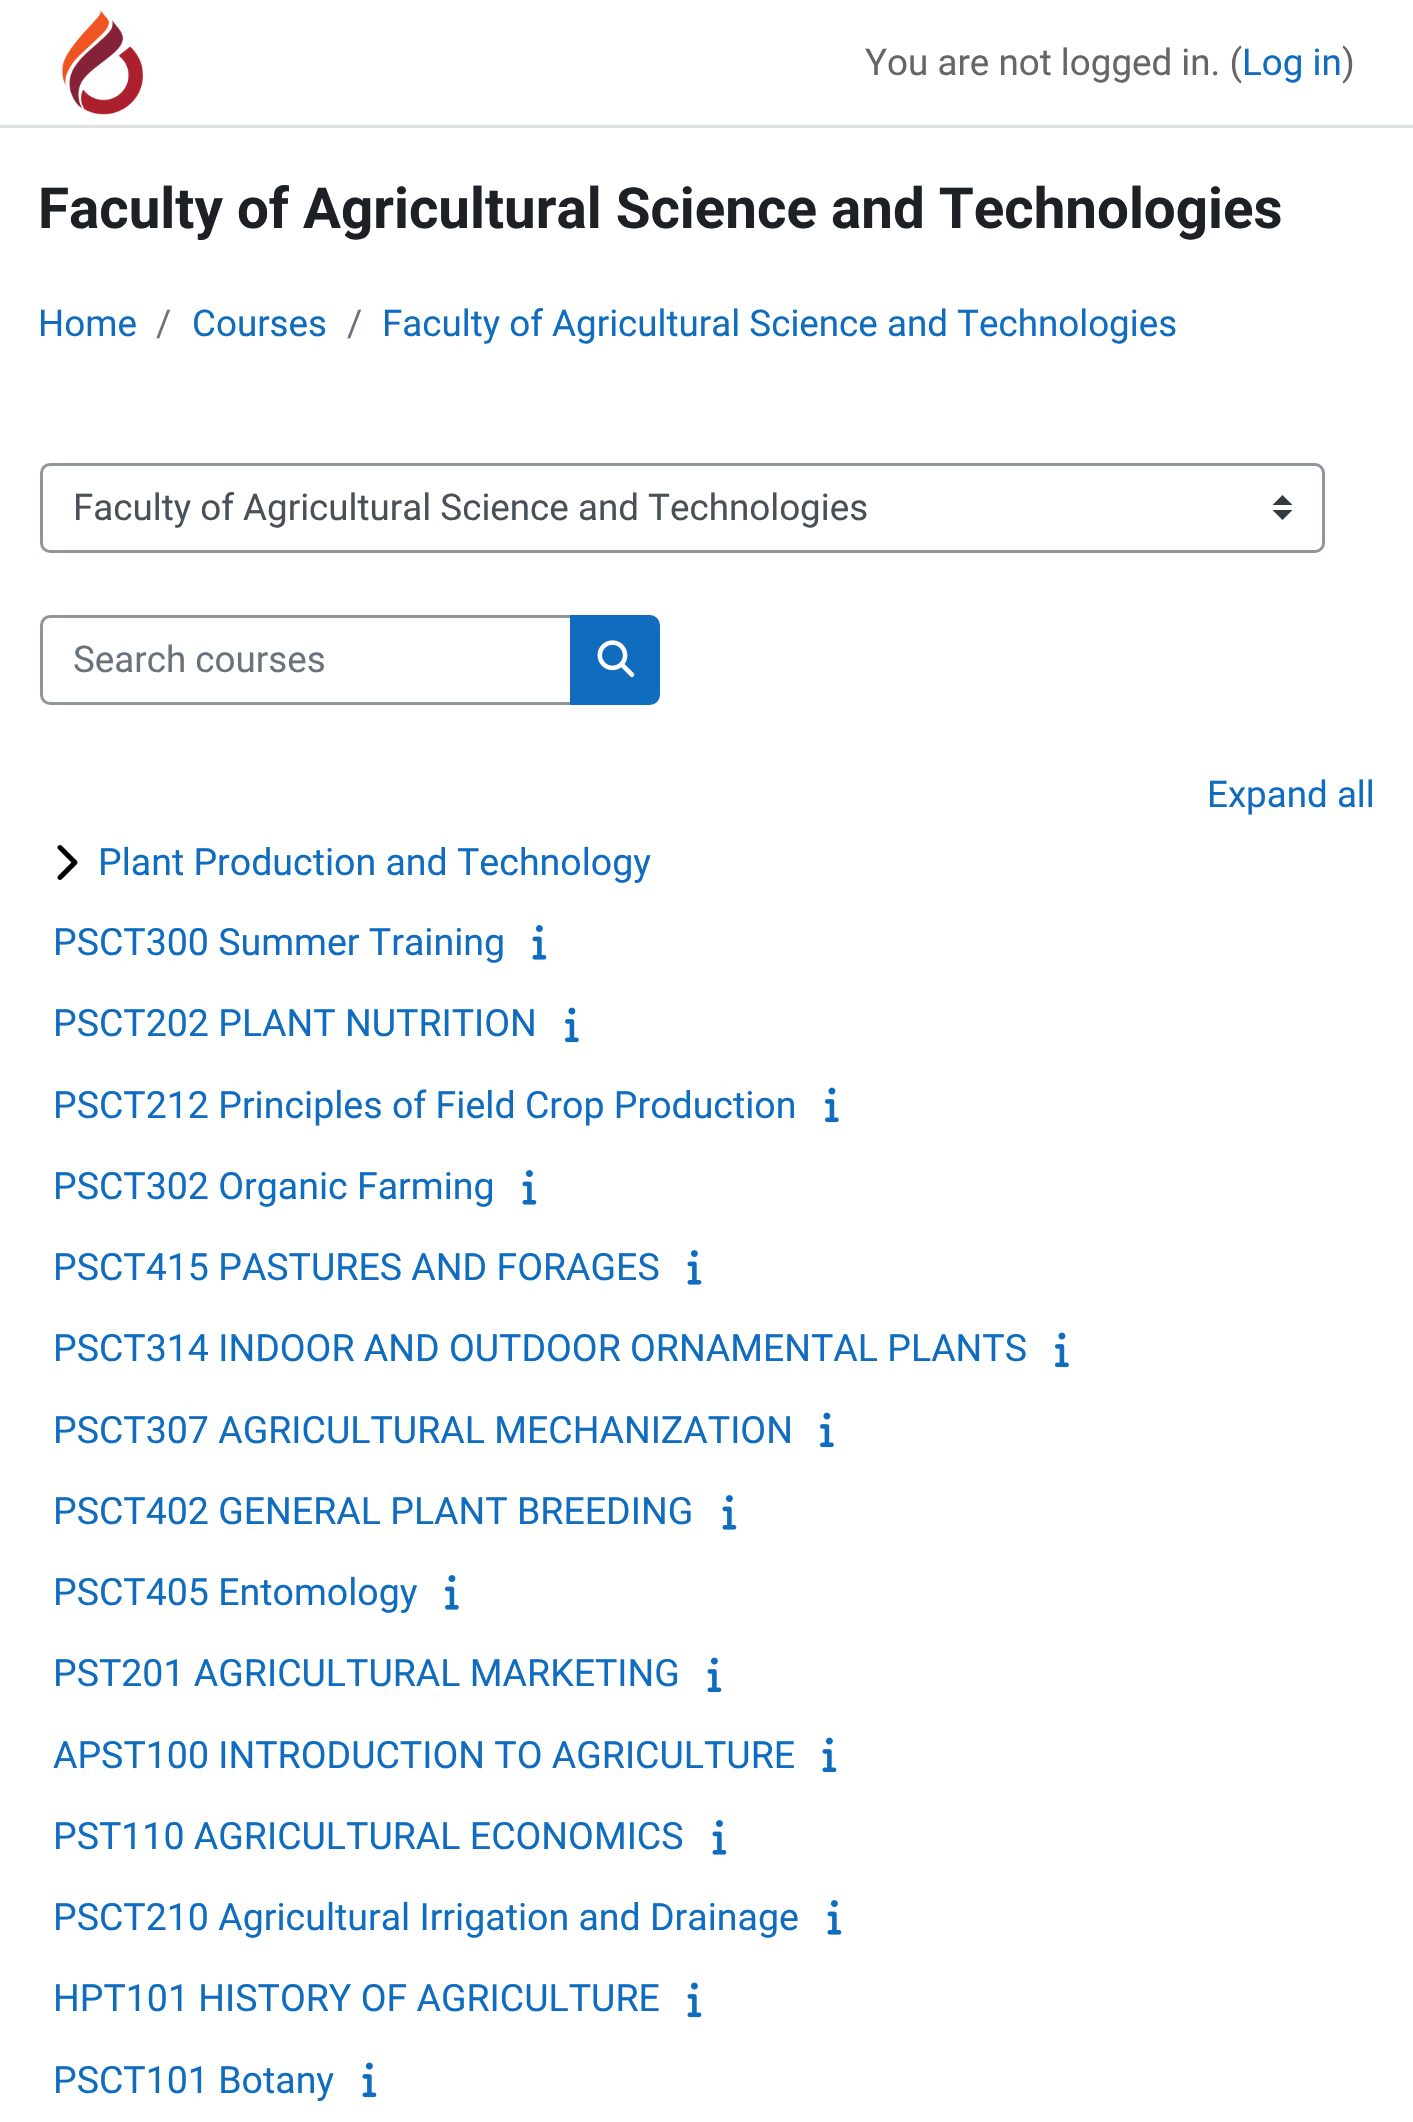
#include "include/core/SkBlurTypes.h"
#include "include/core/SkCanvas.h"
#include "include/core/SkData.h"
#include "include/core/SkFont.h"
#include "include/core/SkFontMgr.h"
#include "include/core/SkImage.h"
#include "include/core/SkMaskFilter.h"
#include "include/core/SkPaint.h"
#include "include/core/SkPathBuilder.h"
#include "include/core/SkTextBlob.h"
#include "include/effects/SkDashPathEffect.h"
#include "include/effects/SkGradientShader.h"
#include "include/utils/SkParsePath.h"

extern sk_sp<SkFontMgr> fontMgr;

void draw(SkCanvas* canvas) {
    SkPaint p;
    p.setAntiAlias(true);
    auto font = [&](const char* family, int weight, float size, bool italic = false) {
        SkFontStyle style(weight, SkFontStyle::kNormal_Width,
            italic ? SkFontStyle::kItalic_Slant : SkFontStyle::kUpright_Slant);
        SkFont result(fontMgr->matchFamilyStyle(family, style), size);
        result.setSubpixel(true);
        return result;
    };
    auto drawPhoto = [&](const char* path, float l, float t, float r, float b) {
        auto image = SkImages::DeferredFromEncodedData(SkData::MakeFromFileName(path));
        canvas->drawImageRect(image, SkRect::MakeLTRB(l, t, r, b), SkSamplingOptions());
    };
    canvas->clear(0xFFFFFFFF);
    p.setColor(0xFFDEE2E6);
    canvas->drawRect(SkRect::MakeLTRB(0, 125, 1413, 128), p);
    drawPhoto("media/1.png", 62, 10, 143, 115);
    auto font1 = font("Roboto", 400, 36.75f);
    p.setColor(0xFF666666);
    canvas->drawString("You are not logged in. (", 865, 75, font1, p);
    p.setColor(0xFF0F6CBF);
    canvas->drawString("Log in", 1242, 75, font1, p);
    p.setColor(0xFF666666);
    canvas->drawString(")", 1342, 75, font1, p);
    auto font2 = font("Roboto", 700, 56.5f);
    p.setColor(0xFF1D2125);
    canvas->drawString("Faculty of Agricultural Science and Technologies", 38, 228, font2, p);
    p.setColor(0xFF0F6CBF);
    canvas->drawString("Home", 38, 336, font1, p);
    p.setColor(0xFF6A737B);
    canvas->drawString("/", 156, 336, font1, p);
    p.setColor(0xFF0F6CBF);
    canvas->drawString("Courses", 192, 336, font1, p);
    p.setColor(0xFF6A737B);
    canvas->drawString("/", 347, 336, font1, p);
    p.setColor(0xFF0F6CBF);
    canvas->drawString("Faculty of Agricultural Science and Technologies", 382, 336, font1, p);
    p.setColor(0xFF343A40);
    canvas->drawPath(SkPathBuilder().moveTo(1282.5f, 495).lineTo(1272.5f, 505).lineTo(1292.5f, 505).close().moveTo(1282.5f, 520).lineTo(1272.5f, 510).lineTo(1292.5f, 510).close().detach(), p);
    p.setStyle(SkPaint::kStroke_Style);
    p.setStrokeWidth(3);
    p.setColor(0xFF8F959E);
    canvas->drawRoundRect(SkRect::MakeLTRB(41.5f, 464.5f, 1323.5f, 551.5f), 8.5f, 8.5f, p);
    p.setStyle(SkPaint::kFill_Style);
    p.setColor(0xFF495057);
    canvas->drawString("Faculty of Agricultural Science and Technologies", 73, 520, font1, p);
    p.setStyle(SkPaint::kStroke_Style);
    p.setColor(0xFF8F959E);
    canvas->drawPath(SkPathBuilder().moveTo(50, 616.5f).lineTo(571.5f, 616.5f).lineTo(571.5f, 703.5f).lineTo(50, 703.5f).cubicTo(45.5f, 703.5f, 41.5f, 699.5f, 41.5f, 695).lineTo(41.5f, 625).cubicTo(41.5f, 620.5f, 45.5f, 616.5f, 50, 616.5f).close().detach(), p);
    p.setStyle(SkPaint::kFill_Style);
    p.setColor(0xFF6A737B);
    canvas->drawString("Search courses", 73, 672, font1, p);
    p.setColor(0xFF0F6CBF);
    canvas->drawPath(SkPathBuilder().moveTo(571.5f, 616.5f).lineTo(650, 616.5f).cubicTo(654.5f, 616.5f, 658.5f, 620.5f, 658.5f, 625).lineTo(658.5f, 695).cubicTo(658.5f, 699.5f, 654.5f, 703.5f, 650, 703.5f).lineTo(571.5f, 703.5f).close().detach(), p);
    p.setStyle(SkPaint::kStroke_Style);
    canvas->drawPath(SkPathBuilder().moveTo(571.5f, 616.5f).lineTo(650, 616.5f).cubicTo(654.5f, 616.5f, 658.5f, 620.5f, 658.5f, 625).lineTo(658.5f, 695).cubicTo(658.5f, 699.5f, 654.5f, 703.5f, 650, 703.5f).lineTo(571.5f, 703.5f).close().detach(), p);
    drawPhoto("media/2.png", 597, 640, 635, 678);
    p.setStyle(SkPaint::kFill_Style);
    canvas->drawString("Expand all", 1207, 807, font1, p);
    drawPhoto("media/3.png", 57, 845, 78, 880);
    auto font3 = font("Roboto", 400, 37.5f);
    canvas->drawString("Plant Production and Technology", 98, 875, font3, p);
    canvas->drawString("PSCT300 Summer Training", 53, 955, font3, p);
    drawPhoto("media/4.png", 532, 925, 547, 960);
    canvas->drawString("PSCT202 PLANT NUTRITION", 53, 1036, font3, p);
    drawPhoto("media/5.png", 565, 1007, 579, 1043);
    canvas->drawString("PSCT212 Principles of Field Crop Production", 53, 1118, font3, p);
    drawPhoto("media/5.png", 825, 1087, 839, 1123);
    canvas->drawString("PSCT302 Organic Farming", 53, 1199, font3, p);
    drawPhoto("media/4.png", 522, 1170, 537, 1205);
    canvas->drawString("PSCT415 PASTURES AND FORAGES", 53, 1280, font3, p);
    drawPhoto("media/4.png", 687, 1250, 702, 1285);
    canvas->drawString("PSCT314 INDOOR AND OUTDOOR ORNAMENTAL PLANTS", 53, 1361, font3, p);
    drawPhoto("media/5.png", 1055, 1332, 1069, 1368);
    canvas->drawString("PSCT307 AGRICULTURAL MECHANIZATION", 53, 1443, font3, p);
    drawPhoto("media/5.png", 820, 1412, 834, 1448);
    canvas->drawString("PSCT402 GENERAL PLANT BREEDING", 53, 1524, font3, p);
    drawPhoto("media/4.png", 722, 1495, 737, 1530);
    canvas->drawString("PSCT405 Entomology", 53, 1605, font3, p);
    drawPhoto("media/6.png", 445, 1575, 459, 1610);
    canvas->drawString("PST201 AGRICULTURAL MARKETING", 53, 1686, font3, p);
    drawPhoto("media/7.png", 707, 1657, 722, 1693);
    canvas->drawString("APST100 INTRODUCTION TO AGRICULTURE", 53, 1768, font3, p);
    drawPhoto("media/7.png", 822, 1737, 837, 1773);
    canvas->drawString("PST110 AGRICULTURAL ECONOMICS", 53, 1849, font3, p);
    drawPhoto("media/4.png", 712, 1820, 727, 1855);
    canvas->drawString("PSCT210 Agricultural Irrigation and Drainage", 53, 1930, font3, p);
    drawPhoto("media/4.png", 827, 1900, 842, 1935);
    canvas->drawString("HPT101 HISTORY OF AGRICULTURE", 53, 2011, font3, p);
    drawPhoto("media/7.png", 687, 1982, 702, 2018);
    canvas->drawString("PSCT101 Botany", 53, 2093, font3, p);
    drawPhoto("media/7.png", 362, 2062, 377, 2098);
}
